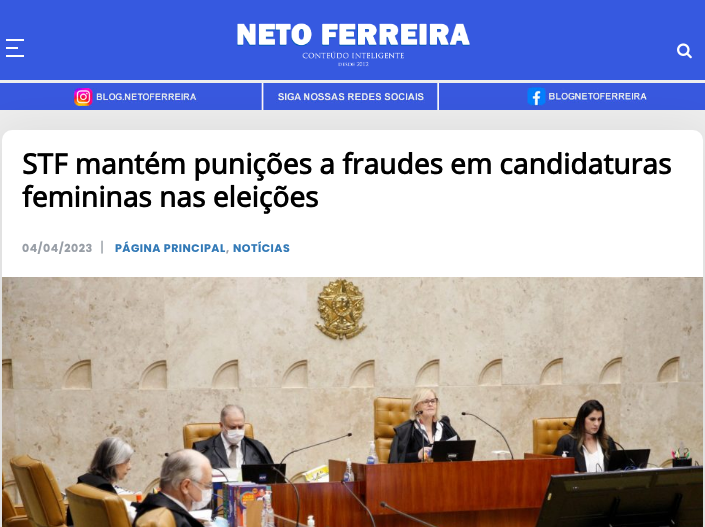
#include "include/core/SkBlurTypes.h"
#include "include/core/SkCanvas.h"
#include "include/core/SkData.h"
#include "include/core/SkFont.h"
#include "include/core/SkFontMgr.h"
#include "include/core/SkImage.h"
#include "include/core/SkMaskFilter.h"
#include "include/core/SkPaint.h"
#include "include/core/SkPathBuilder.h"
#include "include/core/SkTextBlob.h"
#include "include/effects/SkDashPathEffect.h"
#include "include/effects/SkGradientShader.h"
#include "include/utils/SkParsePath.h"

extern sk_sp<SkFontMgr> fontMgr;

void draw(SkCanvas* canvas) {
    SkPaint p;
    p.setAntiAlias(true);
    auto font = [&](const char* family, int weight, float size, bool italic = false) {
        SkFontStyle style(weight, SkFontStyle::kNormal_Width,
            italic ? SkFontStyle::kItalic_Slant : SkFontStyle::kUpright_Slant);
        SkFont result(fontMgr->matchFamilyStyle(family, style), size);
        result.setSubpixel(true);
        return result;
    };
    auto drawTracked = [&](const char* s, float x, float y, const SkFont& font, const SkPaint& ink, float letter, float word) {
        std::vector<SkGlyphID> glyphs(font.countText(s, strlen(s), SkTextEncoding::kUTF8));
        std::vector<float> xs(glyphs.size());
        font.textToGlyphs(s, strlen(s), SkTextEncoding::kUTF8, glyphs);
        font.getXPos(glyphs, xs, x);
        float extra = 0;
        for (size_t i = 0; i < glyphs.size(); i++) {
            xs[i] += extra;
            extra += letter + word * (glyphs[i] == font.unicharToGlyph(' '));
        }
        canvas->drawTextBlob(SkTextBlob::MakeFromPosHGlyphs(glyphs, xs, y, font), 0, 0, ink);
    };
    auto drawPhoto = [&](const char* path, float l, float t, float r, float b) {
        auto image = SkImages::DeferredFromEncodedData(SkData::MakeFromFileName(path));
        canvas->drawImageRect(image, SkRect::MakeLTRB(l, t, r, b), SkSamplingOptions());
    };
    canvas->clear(0xFFEEEEEE);
    p.setColor(0xFF3659E0);
    canvas->drawRect(SkRect::MakeLTRB(0, 0, 705, 80), p);
    drawPhoto("media/3.png", 0, 83, 705, 110);
    p.setColor(0x1A000000);
    p.setMaskFilter(SkMaskFilter::MakeBlur(kNormal_SkBlurStyle, 22.5f));
    canvas->drawRoundRect(SkRect::MakeLTRB(2, 135, 703, 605), 10, 10, p);
    p.setMaskFilter(nullptr);
    drawPhoto("media/1.png", 237, 23, 470, 67);
    {
        const struct { float l, t, r, b; SkColor color; } items[] = {
            {6, 39, 24, 41, 0xFFFFFFFF},
            {6, 47, 18, 49, 0xFFFFFFFF},
            {6, 55, 24, 57, 0xFFFFFFFF},
        };
        for (auto [l, t, r, b, color] : items) {
            p.setColor(color);
            canvas->drawRect(SkRect::MakeLTRB(l, t, r, b), p);
        }
    }
    drawPhoto("media/2.png", 677, 43, 692, 59);
    canvas->drawRoundRect(SkRect::MakeLTRB(2, 130, 703, 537), 10, 10, p);
    auto font1 = font("Noto Sans Khudawadi", 700, 28);
    p.setColor(0xFF000000);
    canvas->drawString("STF mantém punições a fraudes em candidaturas", 22, 174, font1, p);
    canvas->drawString("femininas nas eleições", 22, 207, font1, p);
    auto font2 = font("Poppins", 700, 11);
    p.setColor(0xFF989EA6);
    drawTracked("04/04/2023", 22, 252, font2, p, 0.5f, 0);
    auto font3 = font("Poppins", 400, 14);
    canvas->drawString("|", 100, 252, font3, p);
    p.setColor(0xFF337AB7);
    drawTracked("PÁGINA PRINCIPAL", 115, 252, font2, p, 0.5f, 0);
    p.setColor(0xFF989EA6);
    drawTracked(",", 226, 252, font2, p, 0.5f, 0);
    p.setColor(0xFF337AB7);
    drawTracked("NOTÍCIAS", 233, 252, font2, p, 0.5f, 0);
    drawPhoto("media/4.png", 2, 277, 703, 527);
}
